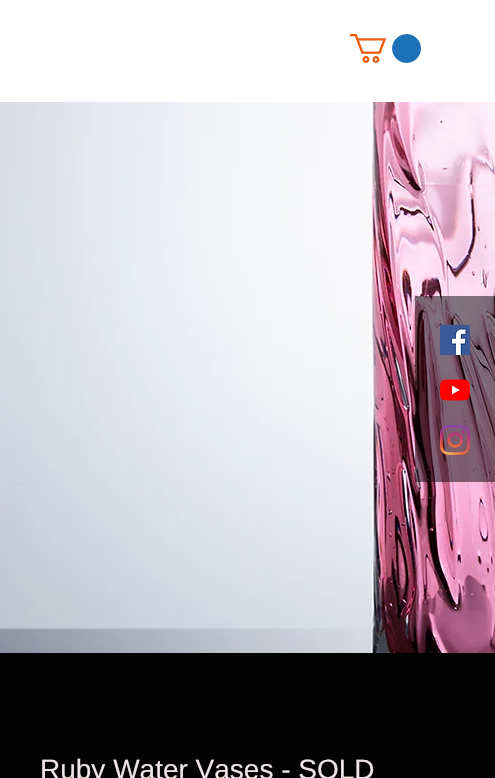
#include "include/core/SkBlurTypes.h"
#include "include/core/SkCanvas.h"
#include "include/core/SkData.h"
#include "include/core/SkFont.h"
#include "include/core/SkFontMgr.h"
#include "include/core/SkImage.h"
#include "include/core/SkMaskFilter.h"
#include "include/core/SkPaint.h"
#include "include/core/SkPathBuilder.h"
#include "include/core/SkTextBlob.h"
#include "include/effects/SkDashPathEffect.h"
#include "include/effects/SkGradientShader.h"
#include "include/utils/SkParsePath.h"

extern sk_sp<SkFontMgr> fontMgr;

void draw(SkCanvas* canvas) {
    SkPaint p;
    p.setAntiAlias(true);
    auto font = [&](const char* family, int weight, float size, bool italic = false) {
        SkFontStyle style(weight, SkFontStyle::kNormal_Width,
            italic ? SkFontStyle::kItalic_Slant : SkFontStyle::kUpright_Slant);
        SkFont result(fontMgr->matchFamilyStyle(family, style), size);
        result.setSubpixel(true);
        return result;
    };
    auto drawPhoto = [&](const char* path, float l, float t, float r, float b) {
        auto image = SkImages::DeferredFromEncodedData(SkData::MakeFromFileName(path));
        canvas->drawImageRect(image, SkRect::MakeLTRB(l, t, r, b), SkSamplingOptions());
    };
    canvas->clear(0xFFFFFFFF);
    drawPhoto("media/1.png", 350, 34, 421, 63);
    drawPhoto("media/5.png", 0, 102, 495, 653);
    p.setColor(0x80020202);
    canvas->drawRect(SkRect::MakeLTRB(415, 296, 495, 482), p);
    drawPhoto("media/2.png", 440, 325, 470, 355);
    drawPhoto("media/3.png", 440, 379, 470, 401);
    drawPhoto("media/4.png", 440, 425, 470, 455);
    p.setColor(0xFF020202);
    canvas->drawRect(SkRect::MakeLTRB(0, 653, 495, 778), p);
    auto font1 = font("Liberation Sans", 400, 28);
    p.setColor(0xFFEEE6E6);
    canvas->drawString("Ruby Water Vases - SOLD", 40, 779, font1, p);
}
